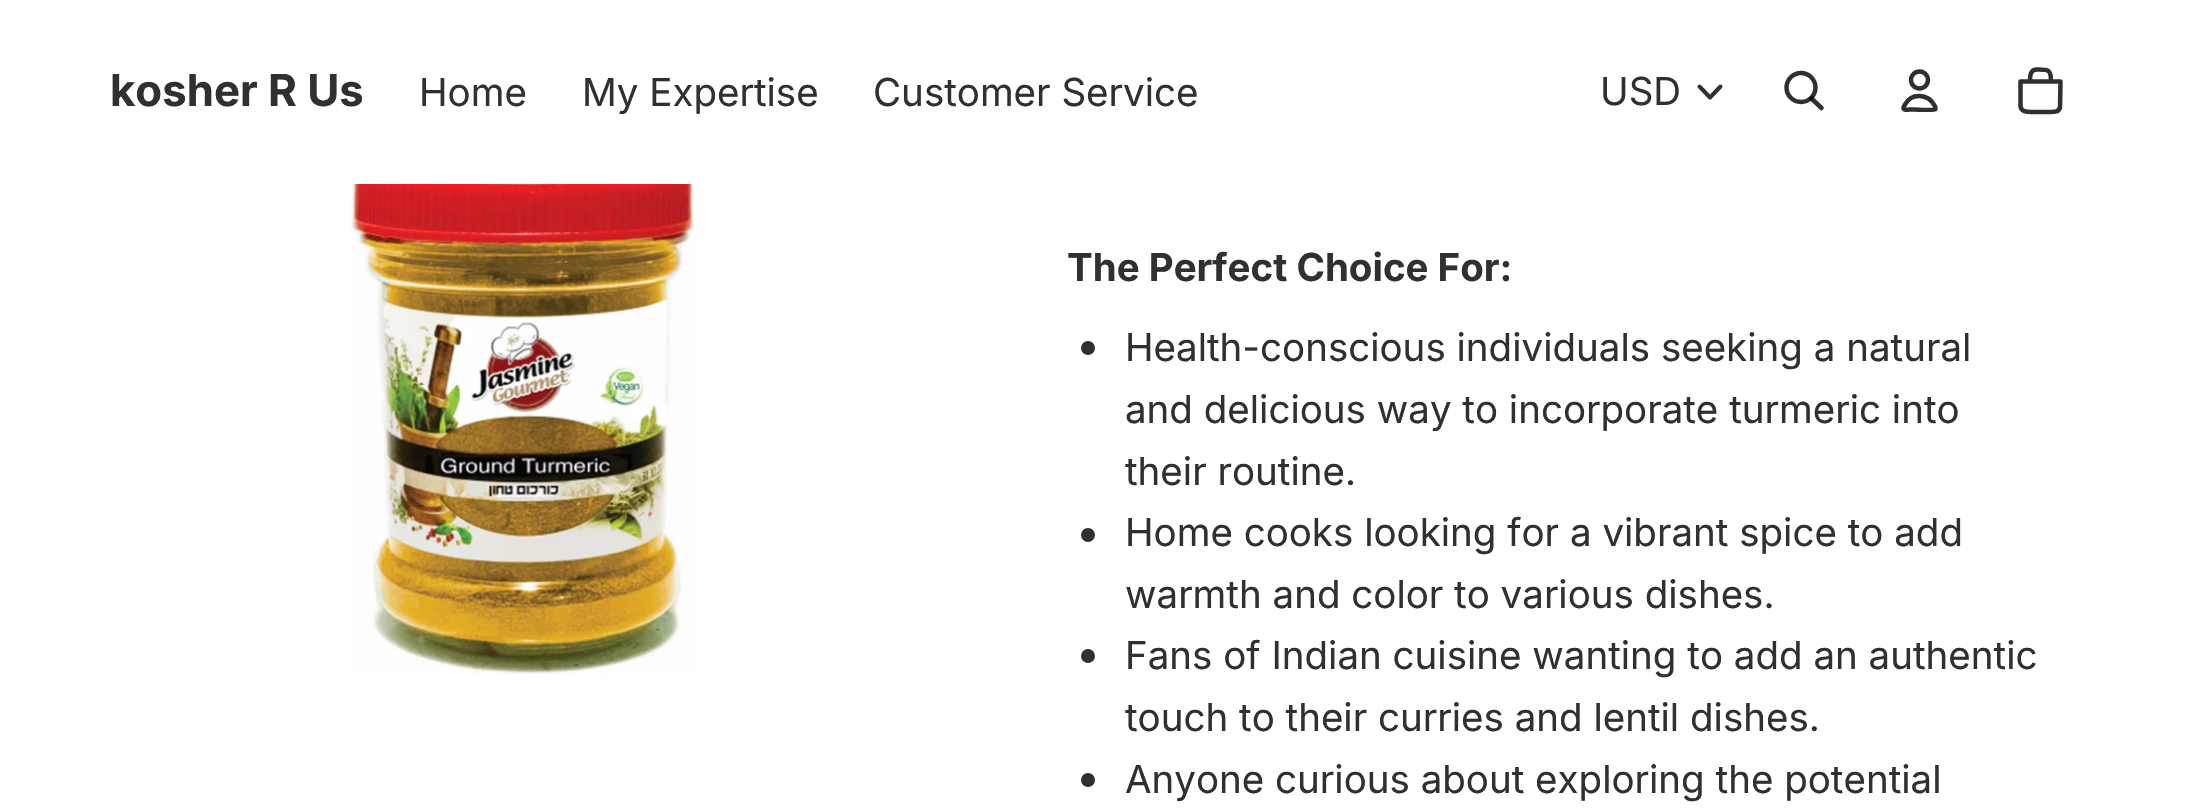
#include "include/core/SkBlurTypes.h"
#include "include/core/SkCanvas.h"
#include "include/core/SkData.h"
#include "include/core/SkFont.h"
#include "include/core/SkFontMgr.h"
#include "include/core/SkImage.h"
#include "include/core/SkMaskFilter.h"
#include "include/core/SkPaint.h"
#include "include/core/SkPathBuilder.h"
#include "include/core/SkTextBlob.h"
#include "include/effects/SkDashPathEffect.h"
#include "include/effects/SkGradientShader.h"
#include "include/utils/SkParsePath.h"

extern sk_sp<SkFontMgr> fontMgr;

void draw(SkCanvas* canvas) {
    SkPaint p;
    p.setAntiAlias(true);
    auto font = [&](const char* family, int weight, float size, bool italic = false) {
        SkFontStyle style(weight, SkFontStyle::kNormal_Width,
            italic ? SkFontStyle::kItalic_Slant : SkFontStyle::kUpright_Slant);
        SkFont result(fontMgr->matchFamilyStyle(family, style), size);
        result.setSubpixel(true);
        return result;
    };
    auto drawPhoto = [&](const char* path, float l, float t, float r, float b) {
        auto image = SkImages::DeferredFromEncodedData(SkData::MakeFromFileName(path));
        canvas->drawImageRect(image, SkRect::MakeLTRB(l, t, r, b), SkSamplingOptions());
    };
    canvas->clear(0xFFFFFFFF);
    auto font1 = font("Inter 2", 700, 44);
    p.setColor(0xFF303030);
    canvas->drawString("kosher R Us", 110, 106, font1, p);
    auto font2 = font("Inter", 400, 38.5f);
    {
        const struct { const char* s; float x, y; } items[] = {
            {"Home", 419, 106},
            {"My Expertise", 582, 106},
            {"Customer Service", 873, 106},
            {"USD", 1600, 105},
        };
        for (auto [s, x, y] : items) {
            canvas->drawString(s, x, y, font2, p);
        }
    }
    p.setStyle(SkPaint::kStroke_Style);
    p.setStrokeWidth(4);
    p.setStrokeCap(SkPaint::kRound_Cap);
    p.setStrokeJoin(SkPaint::kRound_Join);
    canvas->drawPath(SkPathBuilder().moveTo(1720.5f, 86.5f).lineTo(1710, 97.5f).lineTo(1699.5f, 86.5f).detach(), p);
    p.setStrokeWidth(4.5f);
    p.setStrokeCap(SkPaint::kButt_Cap);
    p.setStrokeJoin(SkPaint::kMiter_Join);
    canvas->drawCircle(1801, 87.5f, 14.5f, p);
    p.setStrokeCap(SkPaint::kRound_Cap);
    p.setStrokeJoin(SkPaint::kRound_Join);
    p.setColor(0xCF000000);
    canvas->drawPath(SkPathBuilder().moveTo(1811.5f, 98.5f).lineTo(1821.5f, 108).detach(), p);
    p.setStrokeCap(SkPaint::kButt_Cap);
    p.setStrokeJoin(SkPaint::kMiter_Join);
    p.setColor(0xFF303030);
    canvas->drawCircle(1919.5f, 80, 8.5f, p);
    p.setStrokeCap(SkPaint::kRound_Cap);
    p.setStrokeJoin(SkPaint::kRound_Join);
    canvas->drawPath(SkPathBuilder().moveTo(1905, 104.5f).lineTo(1903.5f, 107.5f).cubicTo(1902.5f, 111, 1909.5f, 109.5f, 1910, 109.5f).lineTo(1914.5f, 109.5f).cubicTo(1917.5f, 109.5f, 1933.5f, 110.5f, 1935, 109.5f).lineTo(1935.5f, 109).cubicTo(1936, 107.5f, 1935, 106.5f, 1934.5f, 105.5f).cubicTo(1928, 93.5f, 1911.5f, 92.5f, 1905, 104.5f).detach(), p);
    canvas->drawPath(SkPathBuilder().moveTo(2020.5f, 81.5f).lineTo(2060.5f, 81.5f).lineTo(2060, 107.5f).cubicTo(2058.5f, 112.5f, 2054, 112, 2049.5f, 112).lineTo(2031.5f, 112).cubicTo(2027, 112, 2020.5f, 112, 2020.5f, 105.5f).close().moveTo(2037, 69.5f).cubicTo(2048, 69.5f, 2051, 69, 2051, 81.5f).lineTo(2030, 81.5f).cubicTo(2030, 76, 2030, 69.5f, 2037, 69.5f).detach(), p);
    drawPhoto("media/1.png", 350, 184, 697, 675);
    auto font3 = font("Inter", 700, 38.5f);
    p.setStyle(SkPaint::kFill_Style);
    canvas->drawString("The Perfect Choice For:", 1067, 281, font3, p);
    canvas->drawCircle(1088, 348, 7, p);
    {
        const struct { const char* s; float x, y; } items[] = {
            {"Health-conscious individuals seeking a natural", 1125, 361},
            {"and delicious way to incorporate turmeric into", 1125, 423},
            {"their routine.", 1125, 485},
        };
        for (auto [s, x, y] : items) {
            canvas->drawString(s, x, y, font2, p);
        }
    }
    canvas->drawCircle(1088, 535, 7, p);
    canvas->drawString("Home cooks looking for a vibrant spice to add", 1125, 546, font2, p);
    canvas->drawString("warmth and color to various dishes.", 1125, 608, font2, p);
    canvas->drawCircle(1088, 656, 7, p);
    canvas->drawString("Fans of Indian cuisine wanting to add an authentic", 1125, 669, font2, p);
    canvas->drawString("touch to their curries and lentil dishes.", 1125, 731, font2, p);
    canvas->drawCircle(1088, 780, 7, p);
    canvas->drawString("Anyone curious about exploring the potential", 1125, 793, font2, p);
}
